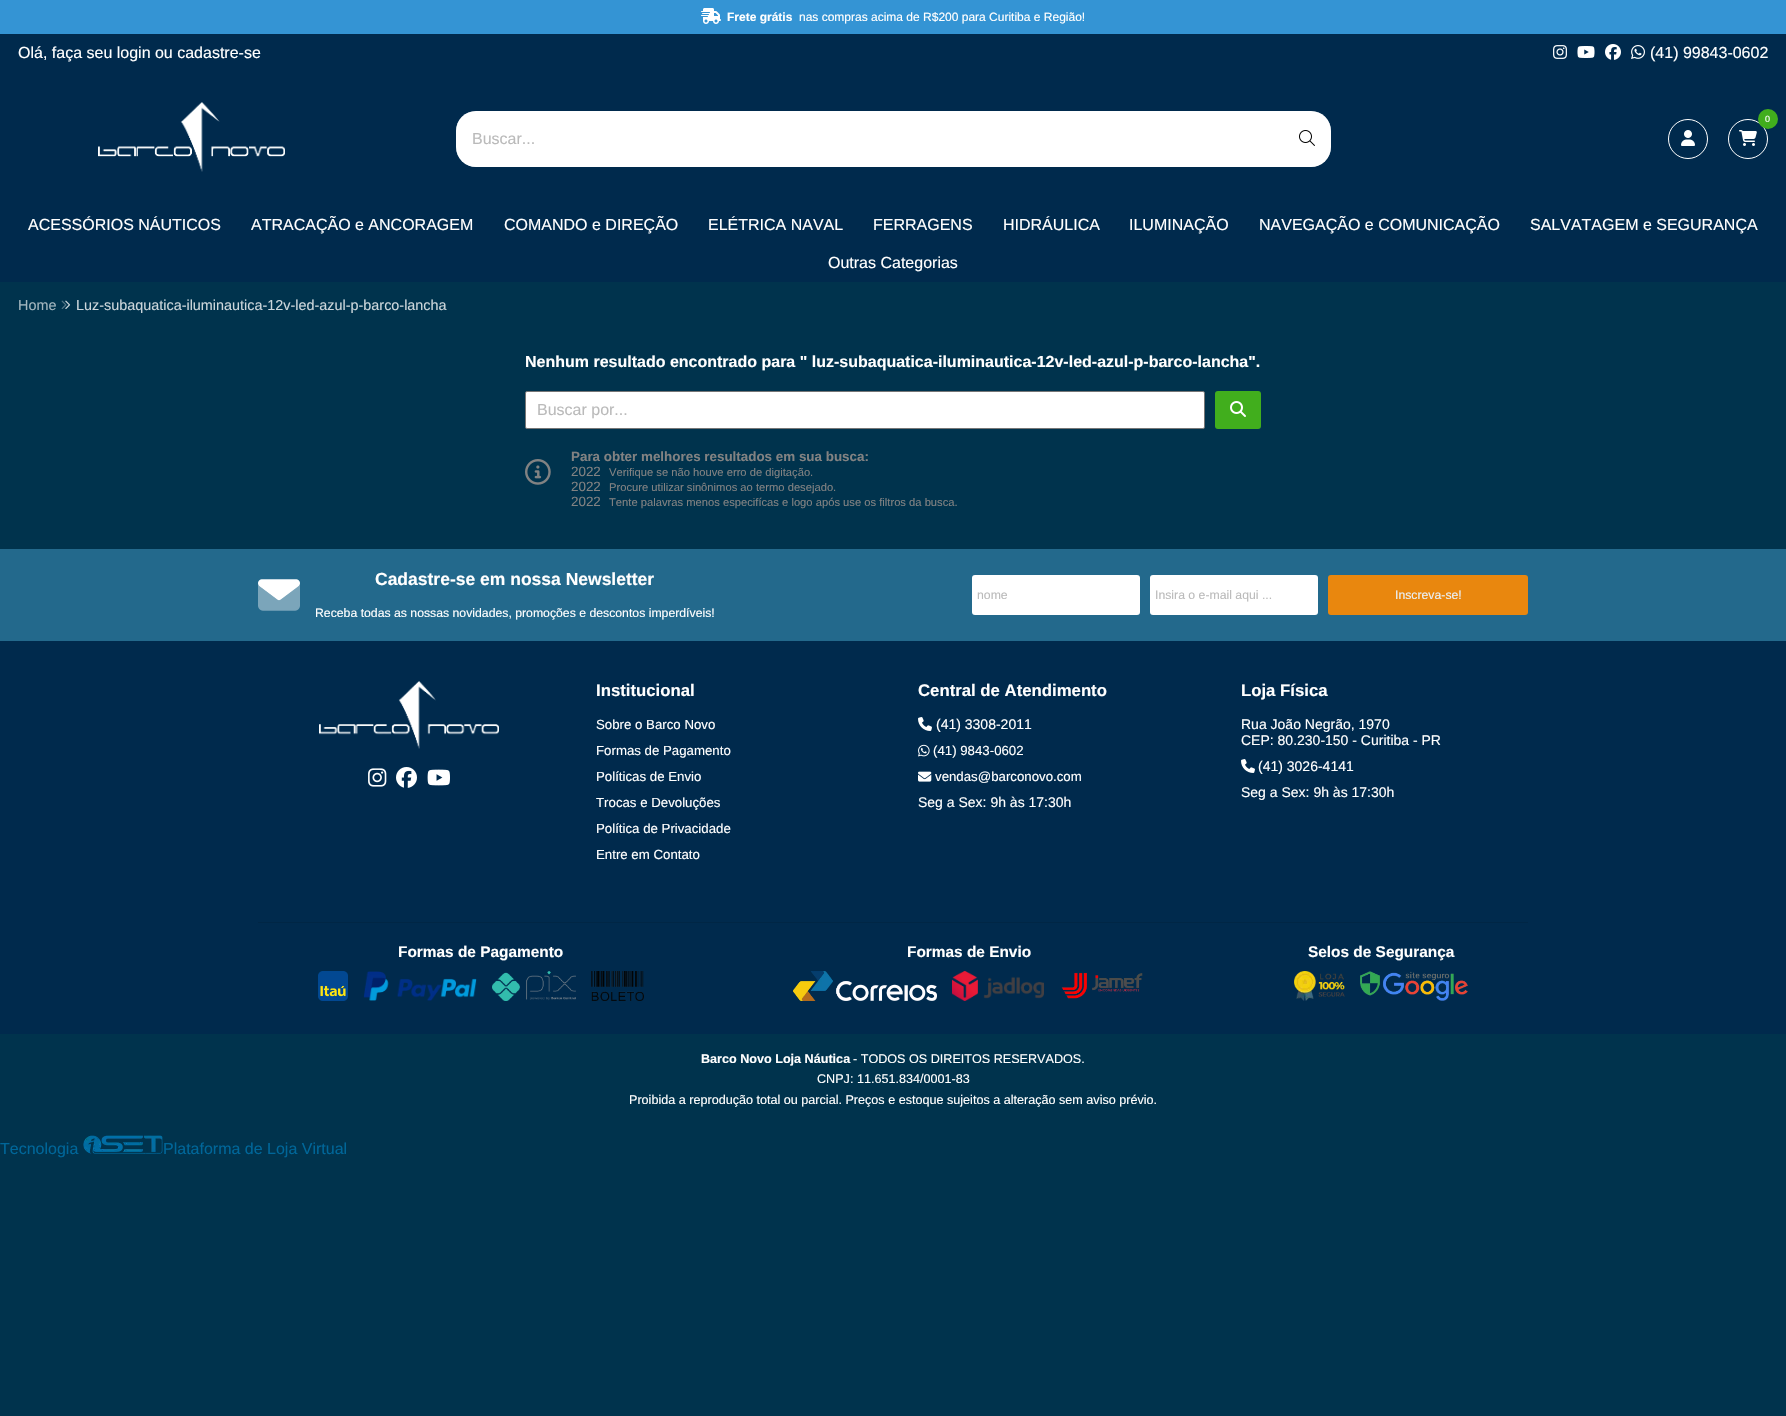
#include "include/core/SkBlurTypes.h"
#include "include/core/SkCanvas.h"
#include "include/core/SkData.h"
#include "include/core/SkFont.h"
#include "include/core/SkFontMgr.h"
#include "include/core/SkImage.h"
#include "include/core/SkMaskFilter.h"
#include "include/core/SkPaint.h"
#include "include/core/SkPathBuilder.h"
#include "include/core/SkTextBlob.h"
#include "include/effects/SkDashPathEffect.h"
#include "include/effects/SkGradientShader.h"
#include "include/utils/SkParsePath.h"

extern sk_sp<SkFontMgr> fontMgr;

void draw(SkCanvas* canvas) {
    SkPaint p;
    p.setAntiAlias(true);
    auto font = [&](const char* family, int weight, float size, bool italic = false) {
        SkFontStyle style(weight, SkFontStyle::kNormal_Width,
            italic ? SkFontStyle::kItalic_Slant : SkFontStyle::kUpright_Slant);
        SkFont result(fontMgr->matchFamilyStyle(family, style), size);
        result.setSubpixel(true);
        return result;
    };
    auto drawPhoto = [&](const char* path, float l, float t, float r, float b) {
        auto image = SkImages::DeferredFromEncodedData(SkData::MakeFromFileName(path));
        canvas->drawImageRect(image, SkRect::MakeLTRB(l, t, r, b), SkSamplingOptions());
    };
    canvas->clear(0xFF00334D);
    p.setColor(0xFF3494D4);
    canvas->drawRect(SkRect::MakeLTRB(0, 0, 1786, 34), p);
    drawPhoto("media/1.png", 701, 8, 721, 24);
    auto font1 = font("Liberation Sans", 700, 12);
    p.setColor(0xFFFFFFFF);
    canvas->drawString("Frete grátis", 727, 21, font1, p);
    auto font2 = font("Liberation Sans", 400, 12);
    canvas->drawString("nas compras acima de R$200 para Curitiba e Região!", 799, 21, font2, p);
    p.setColor(0xFF002A4D);
    canvas->drawRect(SkRect::MakeLTRB(0, 34, 1786, 282), p);
    auto font3 = font("Liberation Sans", 400, 16);
    p.setColor(0xFFFFFFFF);
    canvas->drawString("Olá, faça seu login ou cadastre-se", 18, 58, font3, p);
    drawPhoto("media/2.png", 1553, 45, 1567, 59);
    drawPhoto("media/3.png", 1577, 46, 1595, 58);
    drawPhoto("media/4.png", 1605, 44, 1621, 60);
    drawPhoto("media/5.png", 1631, 45, 1645, 59);
    canvas->drawString("(41) 99843-0602", 1650, 58, font3, p);
    drawPhoto("media/6.png", 98, 102, 285, 172);
    p.setStyle(SkPaint::kStroke_Style);
    p.setStrokeWidth(1);
    canvas->drawCircle(1688, 139, 19.5f, p);
    drawPhoto("media/7.png", 1681, 130, 1695, 146);
    canvas->drawCircle(1748, 139, 19.5f, p);
    p.setStyle(SkPaint::kFill_Style);
    p.setColor(0xFF41AE1D);
    canvas->drawCircle(1768, 119, 10, p);
    auto font4 = font("Liberation Sans", 400, 9);
    p.setColor(0xFFFFFFFF);
    canvas->drawString("0", 1765, 122, font4, p);
    drawPhoto("media/8.png", 1739, 130, 1757, 146);
    canvas->drawRoundRect(SkRect::MakeLTRB(456, 111, 1331, 167), 20, 20, p);
    p.setStyle(SkPaint::kStroke_Style);
    p.setColor(0x66FFFFFF);
    canvas->drawRoundRect(SkRect::MakeLTRB(456.5f, 111.5f, 1330.5f, 166.5f), 19.5f, 19.5f, p);
    p.setStyle(SkPaint::kFill_Style);
    p.setColor(0xFFBABABA);
    canvas->drawString("Buscar...", 472, 144, font3, p);
    drawPhoto("media/9.png", 1299, 130, 1315, 146);
    p.setColor(0xFFFFFFFF);
    {
        const struct { const char* s; float x, y; } items[] = {
            {"ACESSÓRIOS NÁUTICOS", 28, 230},
            {"ATRACAÇÃO e ANCORAGEM", 251, 230},
            {"COMANDO e DIREÇÃO", 504, 230},
            {"ELÉTRICA NAVAL", 708, 230},
            {"FERRAGENS", 873, 230},
            {"HIDRÁULICA", 1003, 230},
            {"ILUMINAÇÃO", 1129, 230},
            {"NAVEGAÇÃO e COMUNICAÇÃO", 1259, 230},
            {"SALVATAGEM e SEGURANÇA", 1530, 230},
            {"Outras Categorias", 828, 268},
        };
        for (auto [s, x, y] : items) {
            canvas->drawString(s, x, y, font3, p);
        }
    }
    auto font5 = font("Liberation Sans", 400, 14.4f);
    p.setColor(0xFFA3B6BF);
    canvas->drawString("Home", 18, 310, font5, p);
    drawPhoto("media/10.png", 61, 300, 71, 309);
    p.setColor(0xFFCCD6DB);
    canvas->drawString("Luz-subaquatica-iluminautica-12v-led-azul-p-barco-lancha", 76, 310, font5, p);
    auto font6 = font("Liberation Sans", 700, 16);
    p.setColor(0xFFFFFFFF);
    canvas->drawString("Nenhum resultado encontrado para \" luz-subaquatica-iluminautica-12v-led-azul-p-barco-lancha\".", 525, 367, font6, p);
    canvas->drawRoundRect(SkRect::MakeLTRB(525.5f, 391.5f, 1204.5f, 428.5f), 1.5f, 1.5f, p);
    p.setStyle(SkPaint::kStroke_Style);
    p.setColor(0xFF767676);
    canvas->drawRoundRect(SkRect::MakeLTRB(525.5f, 391.5f, 1204.5f, 428.5f), 1.5f, 1.5f, p);
    p.setStyle(SkPaint::kFill_Style);
    p.setColor(0xFFBABABA);
    canvas->drawString("Buscar por...", 537, 415, font3, p);
    p.setColor(0xFF41AE1D);
    canvas->drawRoundRect(SkRect::MakeLTRB(1215, 391, 1261, 429), 3, 3, p);
    drawPhoto("media/11.png", 1230, 401, 1246, 417);
    drawPhoto("media/12.png", 525, 459, 551, 485);
    auto font7 = font("Liberation Sans", 700, 13.4f);
    p.setColor(0xFF828282);
    canvas->drawString("Para obter melhores resultados em sua busca:", 571, 461, font7, p);
    auto font8 = font("Liberation Sans", 400, 13.4f);
    canvas->drawString("2022", 571, 476, font8, p);
    auto font9 = font("Liberation Sans", 400, 11.2f);
    canvas->drawString("Verifique se não houve erro de digitação.", 609, 476, font9, p);
    canvas->drawString("2022", 571, 491, font8, p);
    canvas->drawString("Procure utilizar sinônimos ao termo desejado.", 609, 491, font9, p);
    canvas->drawString("2022", 571, 506, font8, p);
    canvas->drawString("Tente palavras menos especifícas e logo após use os filtros da busca.", 609, 506, font9, p);
    p.setColor(0xFF23698C);
    canvas->drawRect(SkRect::MakeLTRB(0, 549, 1786, 641), p);
    drawPhoto("media/13.png", 258, 579, 300, 611);
    auto font10 = font("Liberation Sans", 700, 17.5f);
    p.setColor(0xFFFFFFFF);
    canvas->drawString("Cadastre-se em nossa Newsletter", 375, 585, font10, p);
    auto font11 = font("Liberation Sans", 400, 12.25f);
    canvas->drawString("Receba todas as nossas novidades, promoções e descontos imperdíveis!", 315, 617, font11, p);
    canvas->drawRoundRect(SkRect::MakeLTRB(972, 575, 1140, 615), 3, 3, p);
    p.setColor(0xFFBABABA);
    canvas->drawString("nome", 977, 599, font11, p);
    p.setColor(0xFFFFFFFF);
    canvas->drawRoundRect(SkRect::MakeLTRB(1150, 575, 1318, 615), 3, 3, p);
    p.setColor(0xFFBABABA);
    canvas->drawString("Insira o e-mail aqui ...", 1155, 599, font11, p);
    p.setColor(0xFFE9870E);
    canvas->drawRoundRect(SkRect::MakeLTRB(1328, 575, 1528, 615), 3, 3, p);
    p.setColor(0xFFE9F0F4);
    canvas->drawString("Inscreva-se!", 1395, 599, font11, p);
    p.setColor(0xFF002A4D);
    canvas->drawRect(SkRect::MakeLTRB(0, 641, 1786, 1034), p);
    drawPhoto("media/14.png", 319, 681, 499, 749);
    drawPhoto("media/15.png", 368, 768, 387, 787);
    drawPhoto("media/16.png", 396, 767, 417, 788);
    drawPhoto("media/17.png", 427, 769, 450, 786);
    auto font12 = font("Liberation Sans", 700, 16.75f);
    p.setColor(0xFFFFFFFF);
    canvas->drawString("Institucional", 596, 696, font12, p);
    auto font13 = font("Liberation Sans", 400, 13.25f);
    {
        const struct { const char* s; float x, y; } items[] = {
            {"Sobre o Barco Novo", 596, 729},
            {"Formas de Pagamento", 596, 755},
            {"Políticas de Envio", 596, 781},
            {"Trocas e Devoluções", 596, 807},
            {"Política de Privacidade", 596, 833},
            {"Entre em Contato", 596, 859},
        };
        for (auto [s, x, y] : items) {
            canvas->drawString(s, x, y, font13, p);
        }
    }
    canvas->drawString("Central de Atendimento", 918, 696, font12, p);
    drawPhoto("media/18.png", 918, 717, 932, 731);
    auto font14 = font("Liberation Sans", 400, 14);
    canvas->drawString("(41) 3308-2011", 936, 729, font14, p);
    drawPhoto("media/19.png", 918, 744, 930, 757);
    canvas->drawString("(41) 9843-0602", 933, 755, font13, p);
    drawPhoto("media/20.png", 918, 771, 932, 782);
    canvas->drawString("vendas@barconovo.com", 935, 781, font13, p);
    canvas->drawString("Seg a Sex: 9h às 17:30h", 918, 807, font14, p);
    canvas->drawString("Loja Física", 1241, 696, font12, p);
    canvas->drawString("Rua João Negrão, 1970", 1241, 729, font14, p);
    canvas->drawString("CEP: 80.230-150 - Curitiba - PR", 1241, 745, font14, p);
    drawPhoto("media/18.png", 1241, 759, 1255, 773);
    canvas->drawString("(41) 3026-4141", 1258, 771, font14, p);
    canvas->drawString("Seg a Sex: 9h às 17:30h", 1241, 797, font14, p);
    p.setColor(0xFF002645);
    canvas->drawRect(SkRect::MakeLTRB(258, 922, 1528, 923), p);
    auto font15 = font("Liberation Sans", 700, 15.4f);
    p.setColor(0xFFFFFFFF);
    canvas->drawString("Formas de Pagamento", 398, 957, font15, p);
    drawPhoto("media/21.png", 318, 971, 348, 1001);
    drawPhoto("media/22.png", 363, 971, 477, 1001);
    drawPhoto("media/23.png", 492, 971, 576, 1001);
    drawPhoto("media/24.png", 591, 971, 644, 1001);
    canvas->drawString("Formas de Envio", 907, 957, font15, p);
    drawPhoto("media/25.png", 793, 971, 937, 1001);
    drawPhoto("media/26.png", 952, 971, 1044, 1001);
    drawPhoto("media/27.png", 1061, 972, 1143, 999);
    canvas->drawString("Selos de Segurança", 1308, 957, font15, p);
    drawPhoto("media/28.png", 1294, 971, 1345, 1001);
    drawPhoto("media/29.png", 1360, 971, 1468, 1001);
    auto font16 = font("Liberation Sans", 700, 12.6f);
    canvas->drawString("Barco Novo Loja Náutica", 701, 1063, font16, p);
    auto font17 = font("Liberation Sans", 400, 12.6f);
    {
        const struct { const char* s; float x, y; } items[] = {
            {"- TODOS OS DIREITOS RESERVADOS.", 853, 1063},
            {"CNPJ: 11.651.834/0001-83", 817, 1083},
            {"Proibida a reprodução total ou parcial. Preços e estoque sujeitos a alteração sem aviso prévio.", 629, 1104},
        };
        for (auto [s, x, y] : items) {
            canvas->drawString(s, x, y, font17, p);
        }
    }
    p.setColor(0xFF006699);
    canvas->drawString("Tecnologia", 0, 1154, font3, p);
    drawPhoto("media/30.png", 83, 1135, 163, 1154);
    canvas->drawString("Plataforma de Loja Virtual", 163, 1154, font3, p);
}
